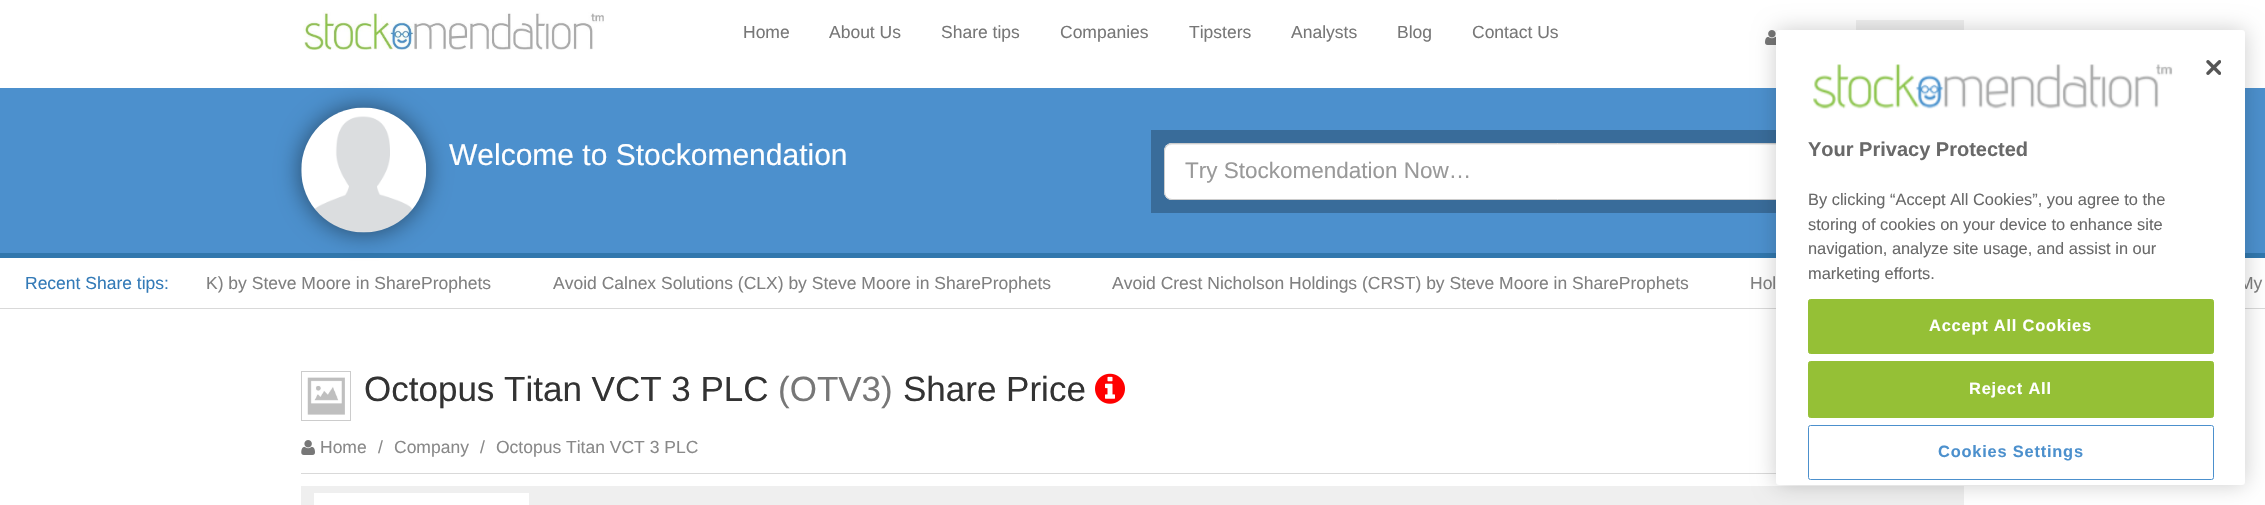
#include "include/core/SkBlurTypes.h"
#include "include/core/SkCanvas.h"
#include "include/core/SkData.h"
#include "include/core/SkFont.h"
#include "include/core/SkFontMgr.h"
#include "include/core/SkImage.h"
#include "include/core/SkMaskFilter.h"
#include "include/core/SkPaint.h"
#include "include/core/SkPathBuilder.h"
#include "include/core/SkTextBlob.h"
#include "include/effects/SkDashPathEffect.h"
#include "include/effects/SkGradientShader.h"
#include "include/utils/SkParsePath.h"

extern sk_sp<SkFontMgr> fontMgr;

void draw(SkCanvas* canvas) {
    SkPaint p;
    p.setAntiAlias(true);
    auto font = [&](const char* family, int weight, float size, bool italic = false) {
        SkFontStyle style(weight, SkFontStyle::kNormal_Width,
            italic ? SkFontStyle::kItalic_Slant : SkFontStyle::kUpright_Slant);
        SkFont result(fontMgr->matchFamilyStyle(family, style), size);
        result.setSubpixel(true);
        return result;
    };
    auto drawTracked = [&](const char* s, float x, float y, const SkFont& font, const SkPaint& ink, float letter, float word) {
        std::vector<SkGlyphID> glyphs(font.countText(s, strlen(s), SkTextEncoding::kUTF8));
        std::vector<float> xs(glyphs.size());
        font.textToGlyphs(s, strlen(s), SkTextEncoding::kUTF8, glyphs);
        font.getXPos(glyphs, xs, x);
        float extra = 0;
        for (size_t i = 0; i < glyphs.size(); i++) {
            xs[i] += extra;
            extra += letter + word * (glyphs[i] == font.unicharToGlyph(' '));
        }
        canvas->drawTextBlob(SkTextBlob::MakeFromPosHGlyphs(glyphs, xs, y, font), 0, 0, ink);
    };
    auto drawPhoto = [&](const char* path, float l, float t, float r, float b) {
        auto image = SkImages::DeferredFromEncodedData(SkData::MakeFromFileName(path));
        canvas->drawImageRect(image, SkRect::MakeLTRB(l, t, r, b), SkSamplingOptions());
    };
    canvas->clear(0xFFFFFFFF);
    drawPhoto("media/1.png", 303, 10, 604, 50);
    auto font1 = font("Liberation Sans", 400, 17.5f);
    p.setColor(0xFF777777);
    {
        const struct { const char* s; float x, y; } items[] = {
            {"Home", 743, 38},
            {"About Us", 829, 38},
            {"Share tips", 941, 38},
            {"Companies", 1060, 38},
            {"Tipsters", 1189, 38},
            {"Analysts", 1291, 38},
            {"Blog", 1397, 38},
            {"Contact Us", 1472, 38},
        };
        for (auto [s, x, y] : items) {
            canvas->drawString(s, x, y, font1, p);
        }
    }
    p.setColor(0xFFEFEFEF);
    canvas->drawRect(SkRect::MakeLTRB(1856, 20, 1964, 30), p);
    drawPhoto("media/2.png", 1765, 30, 1776, 45);
    p.setColor(0xFF4C90CD);
    canvas->drawRect(SkRect::MakeLTRB(0, 88, 2265, 253), p);
    p.setColor(0xFF3177AD);
    canvas->drawRect(SkRect::MakeLTRB(0, 253, 2265, 258), p);
    p.setColor(0x80000000);
    p.setMaskFilter(SkMaskFilter::MakeBlur(kNormal_SkBlurStyle, 12.5f));
    canvas->drawRoundRect(SkRect::MakeLTRB(301, 108, 426, 233), 62.5f, 62.5f, p);
    p.setMaskFilter(nullptr);
    drawPhoto("media/3.png", 301, 107, 427, 233);
    auto font2 = font("Liberation Sans", 400, 30);
    p.setColor(0xFFFFFFFF);
    canvas->drawString("Welcome to Stockomendation", 449, 165, font2, p);
    p.setColor(0xFF396C9A);
    canvas->drawRect(SkRect::MakeLTRB(1151, 130, 1776, 213), p);
    p.setColor(0xFFFFFFFF);
    canvas->drawRoundRect(SkRect::MakeLTRB(1164, 143, 1951, 200), 8, 8, p);
    p.setColor(0xFFECECEC);
    canvas->drawPath(SkPathBuilder().moveTo(1171, 145).lineTo(1944, 145).cubicTo(1947, 145, 1950, 148, 1950, 151).cubicTo(1950, 147, 1948, 144, 1944, 144).lineTo(1171, 144).cubicTo(1167, 144, 1165, 147, 1165, 151).cubicTo(1165, 148, 1168, 145, 1171, 145).close().detach(), p);
    p.setStyle(SkPaint::kStroke_Style);
    p.setStrokeWidth(1);
    p.setColor(0xFFCCCCCC);
    canvas->drawRoundRect(SkRect::MakeLTRB(1164.5f, 143.5f, 1950.5f, 199.5f), 7.5f, 7.5f, p);
    auto font3 = font("Liberation Sans", 400, 22.5f);
    p.setStyle(SkPaint::kFill_Style);
    p.setColor(0xFF999999);
    canvas->drawString("Try Stockomendation Now…", 1185, 178, font3, p);
    p.setColor(0xFFD9D9D9);
    canvas->drawRect(SkRect::MakeLTRB(0, 308, 2265, 309), p);
    canvas->save();
    canvas->clipRect(SkRect::MakeLTRB(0, 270, 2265, 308));
    p.setColor(0xFFFFFFFF);
    p.setMaskFilter(SkMaskFilter::MakeBlur(kNormal_SkBlurStyle, 12));
    canvas->drawRect(SkRect::MakeLTRB(0, 261, 211, 304), p);
    p.setMaskFilter(nullptr);
    canvas->restore();
    p.setColor(0xFF337AB7);
    canvas->drawString("Recent Share tips:", 25, 289, font1, p);
    p.setColor(0xFF808080);
    {
        const struct { const char* s; float x, y; } items[] = {
            {"K) by Steve Moore in ShareProphets", 206, 289},
            {"Avoid Calnex Solutions (CLX) by Steve Moore in ShareProphets", 553, 289},
            {"Avoid Crest Nicholson Holdings (CRST) by Steve Moore in ShareProphets", 1112, 289},
            {"Hol", 1750, 289},
            {"My", 2239, 289},
        };
        for (auto [s, x, y] : items) {
            canvas->drawString(s, x, y, font1, p);
        }
    }
    p.setStyle(SkPaint::kStroke_Style);
    p.setColor(0xFFCCCCCC);
    canvas->drawRect(SkRect::MakeLTRB(301.5f, 371.5f, 350.5f, 420.5f), p);
    drawPhoto("media/4.png", 307, 377, 345, 415);
    auto font4 = font("Liberation Sans", 400, 35);
    p.setStyle(SkPaint::kFill_Style);
    p.setColor(0xFF333333);
    canvas->drawString("Octopus Titan VCT 3 PLC", 364, 401, font4, p);
    p.setColor(0xFF777777);
    canvas->drawString("(OTV3)", 778, 401, font4, p);
    p.setColor(0xFF333333);
    canvas->drawString("Share Price", 903, 401, font4, p);
    drawPhoto("media/5.png", 1095, 373, 1125, 404);
    drawPhoto("media/6.png", 301, 440, 315, 455);
    p.setColor(0xFF898989);
    {
        const struct { const char* s; float x, y; } items[] = {
            {"Home", 320, 453},
            {"/", 378, 453},
            {"Company", 394, 453},
            {"/", 480, 453},
            {"Octopus Titan VCT 3 PLC", 496, 453},
        };
        for (auto [s, x, y] : items) {
            canvas->drawString(s, x, y, font1, p);
        }
    }
    {
        const struct { float l, t, r, b; SkColor color; } items[] = {
            {301, 473, 1776, 474, 0xFFD9D9D9},
            {301, 486, 1964, 505, 0xFFEFEFEF},
            {314, 493, 529, 505, 0xFFFFFFFF},
        };
        for (auto [l, t, r, b, color] : items) {
            p.setColor(color);
            canvas->drawRect(SkRect::MakeLTRB(l, t, r, b), p);
        }
    }
    p.setColor(0x33000000);
    p.setMaskFilter(SkMaskFilter::MakeBlur(kNormal_SkBlurStyle, 11));
    canvas->drawRoundRect(SkRect::MakeLTRB(1776, 30, 2245, 485), 3, 3, p);
    p.setMaskFilter(nullptr);
    p.setColor(0xFFFFFFFF);
    canvas->drawRoundRect(SkRect::MakeLTRB(1776, 30, 2245, 485), 3, 3, p);
    drawPhoto("media/7.png", 2206, 60, 2221, 75);
    drawPhoto("media/8.png", 1813, 64, 2173, 109);
    auto font5 = font("Liberation Sans", 700, 20);
    p.setColor(0xFF696969);
    canvas->drawString("Your Privacy Protected", 1808, 156, font5, p);
    auto font6 = font("Liberation Sans", 400, 16.4f);
    {
        const struct { const char* s; float x, y; } items[] = {
            {"By clicking “Accept All Cookies”, you agree to the", 1808, 205},
            {"storing of cookies on your device to enhance site", 1808, 230},
            {"navigation, analyze site usage, and assist in our", 1808, 254},
            {"marketing efforts.", 1808, 279},
        };
        for (auto [s, x, y] : items) {
            canvas->drawString(s, x, y, font6, p);
        }
    }
    p.setColor(0xFF95C036);
    canvas->drawRoundRect(SkRect::MakeLTRB(1808.5f, 299.5f, 2213.5f, 353.5f), 2, 2, p);
    p.setStyle(SkPaint::kStroke_Style);
    canvas->drawRoundRect(SkRect::MakeLTRB(1808.5f, 299.5f, 2213.5f, 353.5f), 2, 2, p);
    auto font7 = font("Liberation Sans", 700, 16.4f);
    p.setStyle(SkPaint::kFill_Style);
    p.setColor(0xFFFFFFFF);
    drawTracked("Accept All Cookies", 1929, 331, font7, p, 0.8f, 0);
    p.setColor(0xFF95C036);
    canvas->drawRoundRect(SkRect::MakeLTRB(1808.5f, 361.5f, 2213.5f, 417.5f), 2, 2, p);
    p.setStyle(SkPaint::kStroke_Style);
    canvas->drawRoundRect(SkRect::MakeLTRB(1808.5f, 361.5f, 2213.5f, 417.5f), 2, 2, p);
    p.setStyle(SkPaint::kFill_Style);
    p.setColor(0xFFFFFFFF);
    drawTracked("Reject All", 1969, 394, font7, p, 0.8f, 0);
    p.setStyle(SkPaint::kStroke_Style);
    p.setColor(0xFF4C90CD);
    canvas->drawRoundRect(SkRect::MakeLTRB(1808.5f, 425.5f, 2213.5f, 479.5f), 2, 2, p);
    p.setStyle(SkPaint::kFill_Style);
    drawTracked("Cookies Settings", 1938, 457, font7, p, 0.8f, 0);
}
